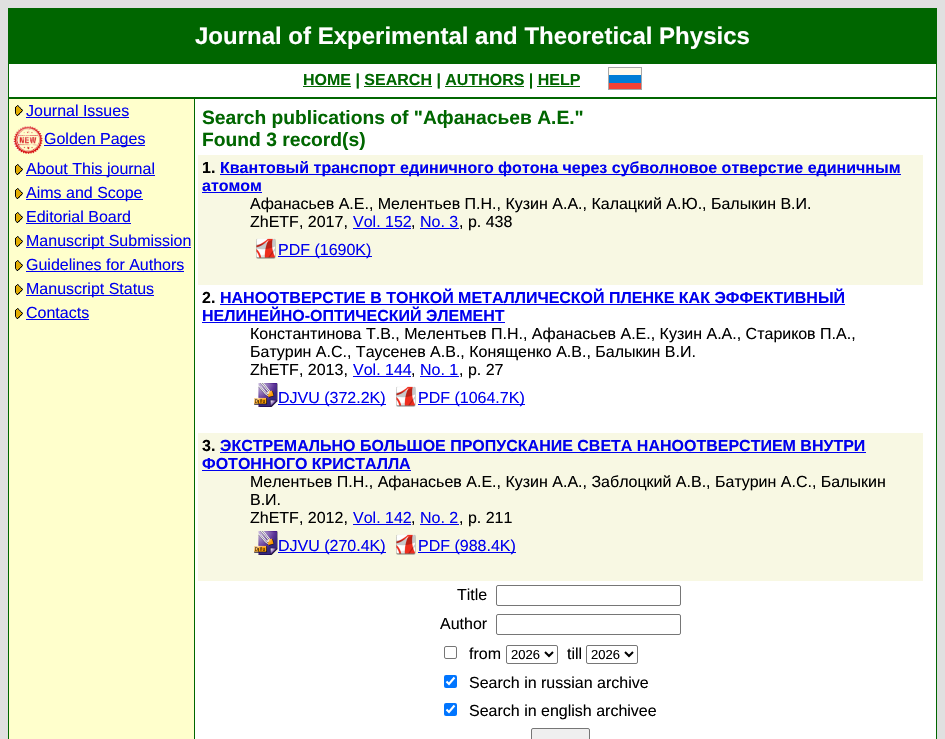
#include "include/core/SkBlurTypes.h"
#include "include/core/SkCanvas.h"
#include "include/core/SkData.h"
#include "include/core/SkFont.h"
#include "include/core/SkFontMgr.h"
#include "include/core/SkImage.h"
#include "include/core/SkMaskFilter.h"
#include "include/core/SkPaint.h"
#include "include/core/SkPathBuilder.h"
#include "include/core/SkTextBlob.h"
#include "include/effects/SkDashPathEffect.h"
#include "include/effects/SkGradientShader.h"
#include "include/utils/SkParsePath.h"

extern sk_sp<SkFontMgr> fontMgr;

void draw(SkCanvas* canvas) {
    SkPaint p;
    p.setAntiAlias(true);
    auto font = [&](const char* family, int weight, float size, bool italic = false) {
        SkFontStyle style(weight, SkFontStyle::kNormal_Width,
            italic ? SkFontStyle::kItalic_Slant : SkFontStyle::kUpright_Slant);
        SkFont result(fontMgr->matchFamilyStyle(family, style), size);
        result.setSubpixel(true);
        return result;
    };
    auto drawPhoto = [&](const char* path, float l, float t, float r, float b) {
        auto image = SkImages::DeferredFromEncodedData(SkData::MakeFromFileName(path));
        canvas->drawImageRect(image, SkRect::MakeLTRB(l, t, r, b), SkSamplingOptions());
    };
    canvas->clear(0xFFE0E0E0);
    p.setColor(0xFF006600);
    canvas->drawRect(SkRect::MakeLTRB(8, 8, 937, 739), p);
    p.setColor(0xFFFFFFFF);
    canvas->drawRect(SkRect::MakeLTRB(9, 64, 936, 739), p);
    auto font1 = font("Liberation Sans", 700, 24);
    canvas->drawString("Journal of Experimental and Theoretical Physics", 195, 44, font1, p);
    p.setColor(0xFF006600);
    canvas->drawRect(SkRect::MakeLTRB(303, 86, 351, 87), p);
    auto font2 = font("Liberation Sans", 700, 16);
    canvas->drawString("HOME | SEARCH | AUTHORS | HELP", 303, 85, font2, p);
    {
        const struct { float l, t, r, b; SkColor color; } items[] = {
            {364, 86, 432, 87, 0xFF006600},
            {445, 86, 524, 87, 0xFF006600},
            {537, 86, 580, 87, 0xFF006600},
        };
        for (auto [l, t, r, b, color] : items) {
            p.setColor(color);
            canvas->drawRect(SkRect::MakeLTRB(l, t, r, b), p);
        }
    }
    drawPhoto("media/1.png", 608, 67, 642, 90);
    canvas->drawRect(SkRect::MakeLTRB(9, 97, 936, 99), p);
    p.setColor(0xFFFFFFCC);
    canvas->drawRect(SkRect::MakeLTRB(9, 99, 194, 739), p);
    drawPhoto("media/2.png", 14, 105, 23, 116);
    auto font3 = font("Liberation Sans", 400, 16);
    p.setColor(0xFF0000EE);
    canvas->drawString("Journal Issues", 26, 116, font3, p);
    canvas->drawRect(SkRect::MakeLTRB(26, 117, 129, 118), p);
    drawPhoto("media/3.png", 12, 126, 43, 154);
    canvas->drawRect(SkRect::MakeLTRB(44, 145, 145, 146), p);
    canvas->drawString("Golden Pages", 44, 144, font3, p);
    drawPhoto("media/2.png", 14, 164, 23, 175);
    canvas->drawRect(SkRect::MakeLTRB(26, 175, 155, 176), p);
    canvas->drawString("About This journal", 26, 174, font3, p);
    drawPhoto("media/2.png", 14, 188, 23, 199);
    canvas->drawRect(SkRect::MakeLTRB(26, 199, 143, 200), p);
    canvas->drawString("Aims and Scope", 26, 198, font3, p);
    drawPhoto("media/2.png", 14, 212, 23, 223);
    canvas->drawString("Editorial Board", 26, 222, font3, p);
    canvas->drawRect(SkRect::MakeLTRB(26, 223, 131, 224), p);
    drawPhoto("media/2.png", 14, 236, 23, 247);
    canvas->drawRect(SkRect::MakeLTRB(26, 247, 191, 248), p);
    canvas->drawString("Manuscript Submission", 26, 246, font3, p);
    drawPhoto("media/2.png", 14, 260, 23, 271);
    canvas->drawString("Guidelines for Authors", 26, 270, font3, p);
    canvas->drawRect(SkRect::MakeLTRB(26, 271, 184, 272), p);
    drawPhoto("media/2.png", 14, 284, 23, 295);
    canvas->drawRect(SkRect::MakeLTRB(26, 295, 154, 296), p);
    canvas->drawString("Manuscript Status", 26, 294, font3, p);
    drawPhoto("media/2.png", 14, 308, 23, 319);
    canvas->drawString("Contacts", 26, 318, font3, p);
    canvas->drawRect(SkRect::MakeLTRB(26, 319, 89, 320), p);
    p.setColor(0xFF006600);
    canvas->drawRect(SkRect::MakeLTRB(194, 99, 195, 739), p);
    auto font4 = font("Liberation Sans", 700, 19.25f);
    canvas->drawString("Search publications of \"Афанасьев А.Е.\"", 202, 124, font4, p);
    canvas->drawString("Found 3 record(s)", 202, 146, font4, p);
    p.setColor(0xFFF8F8E3);
    canvas->drawRect(SkRect::MakeLTRB(198, 155, 923, 285), p);
    p.setColor(0xFF000000);
    canvas->drawString("1.", 202, 173, font2, p);
    p.setColor(0xFF0000EE);
    canvas->drawRect(SkRect::MakeLTRB(220, 174, 901, 175), p);
    canvas->drawString("Квантовый транспорт единичного фотона через субволновое отверстие единичным", 220, 173, font2, p);
    canvas->drawString("атомом", 202, 191, font2, p);
    canvas->drawRect(SkRect::MakeLTRB(202, 192, 262, 193), p);
    p.setColor(0xFF000000);
    canvas->drawString("Афанасьев А.Е., Мелентьев П.Н., Кузин А.А., Калацкий А.Ю., Балыкин В.И.", 250, 209, font3, p);
    canvas->drawString("ZhETF, 2017,", 250, 227, font3, p);
    p.setColor(0xFF0000EE);
    canvas->drawString("Vol. 152", 353, 227, font3, p);
    canvas->drawRect(SkRect::MakeLTRB(353, 228, 411, 229), p);
    p.setColor(0xFF000000);
    canvas->drawString(",", 411, 227, font3, p);
    p.setColor(0xFF0000EE);
    canvas->drawString("No. 3", 420, 227, font3, p);
    canvas->drawRect(SkRect::MakeLTRB(420, 228, 459, 229), p);
    p.setColor(0xFF000000);
    canvas->drawString(", p. 438", 459, 227, font3, p);
    drawPhoto("media/4.png", 256, 238, 276, 259);
    p.setColor(0xFF0000EE);
    canvas->drawRect(SkRect::MakeLTRB(278, 256, 372, 257), p);
    canvas->drawString("PDF (1690K)", 278, 255, font3, p);
    p.setColor(0xFF000000);
    canvas->drawString("2.", 202, 303, font2, p);
    p.setColor(0xFF0000EE);
    canvas->drawString("НАНООТВЕРСТИЕ В ТОНКОЙ МЕТАЛЛИЧЕСКОЙ ПЛЕНКЕ КАК ЭФФЕКТИВНЫЙ", 220, 303, font2, p);
    canvas->drawRect(SkRect::MakeLTRB(220, 304, 845, 305), p);
    canvas->drawString("НЕЛИНЕЙНО-ОПТИЧЕСКИЙ ЭЛЕМЕНТ", 202, 321, font2, p);
    canvas->drawRect(SkRect::MakeLTRB(202, 322, 505, 323), p);
    p.setColor(0xFF000000);
    {
        const struct { const char* s; float x, y; } items[] = {
            {"Константинова Т.В., Мелентьев П.Н., Афанасьев А.Е., Кузин А.А., Стариков П.А.,", 250, 339},
            {"Батурин А.С., Таусенев А.В., Конященко А.В., Балыкин В.И.", 250, 357},
            {"ZhETF, 2013,", 250, 375},
        };
        for (auto [s, x, y] : items) {
            canvas->drawString(s, x, y, font3, p);
        }
    }
    p.setColor(0xFF0000EE);
    canvas->drawString("Vol. 144", 353, 375, font3, p);
    canvas->drawRect(SkRect::MakeLTRB(353, 376, 411, 377), p);
    p.setColor(0xFF000000);
    canvas->drawString(",", 411, 375, font3, p);
    p.setColor(0xFF0000EE);
    canvas->drawString("No. 1", 420, 375, font3, p);
    canvas->drawRect(SkRect::MakeLTRB(420, 376, 459, 377), p);
    p.setColor(0xFF000000);
    canvas->drawString(", p. 27", 459, 375, font3, p);
    drawPhoto("media/5.png", 254, 383, 278, 407);
    p.setColor(0xFF0000EE);
    canvas->drawRect(SkRect::MakeLTRB(278, 404, 386, 405), p);
    canvas->drawString("DJVU (372.2K)", 278, 403, font3, p);
    drawPhoto("media/6.png", 396, 386, 416, 407);
    canvas->drawRect(SkRect::MakeLTRB(418, 404, 525, 405), p);
    canvas->drawString("PDF (1064.7K)", 418, 403, font3, p);
    p.setColor(0xFFF8F8E3);
    canvas->drawRect(SkRect::MakeLTRB(198, 433, 923, 581), p);
    p.setColor(0xFF000000);
    canvas->drawString("3.", 202, 451, font2, p);
    p.setColor(0xFF0000EE);
    canvas->drawString("ЭКСТРЕМАЛЬНО БОЛЬШОЕ ПРОПУСКАНИЕ СВЕТА НАНООТВЕРСТИЕМ ВНУТРИ", 220, 451, font2, p);
    canvas->drawRect(SkRect::MakeLTRB(220, 452, 866, 453), p);
    canvas->drawString("ФОТОННОГО КРИСТАЛЛА", 202, 469, font2, p);
    canvas->drawRect(SkRect::MakeLTRB(202, 470, 411, 471), p);
    p.setColor(0xFF000000);
    {
        const struct { const char* s; float x, y; } items[] = {
            {"Мелентьев П.Н., Афанасьев А.Е., Кузин А.А., Заблоцкий А.В., Батурин А.С., Балыкин", 250, 487},
            {"В.И.", 250, 505},
            {"ZhETF, 2012,", 250, 523},
        };
        for (auto [s, x, y] : items) {
            canvas->drawString(s, x, y, font3, p);
        }
    }
    p.setColor(0xFF0000EE);
    canvas->drawString("Vol. 142", 353, 523, font3, p);
    canvas->drawRect(SkRect::MakeLTRB(353, 524, 411, 525), p);
    p.setColor(0xFF000000);
    canvas->drawString(",", 411, 523, font3, p);
    p.setColor(0xFF0000EE);
    canvas->drawString("No. 2", 420, 523, font3, p);
    canvas->drawRect(SkRect::MakeLTRB(420, 524, 459, 525), p);
    p.setColor(0xFF000000);
    canvas->drawString(", p. 211", 459, 523, font3, p);
    drawPhoto("media/7.png", 254, 531, 278, 555);
    p.setColor(0xFF0000EE);
    canvas->drawRect(SkRect::MakeLTRB(278, 552, 386, 553), p);
    canvas->drawString("DJVU (270.4K)", 278, 551, font3, p);
    drawPhoto("media/4.png", 396, 534, 416, 555);
    canvas->drawRect(SkRect::MakeLTRB(418, 552, 516, 553), p);
    canvas->drawString("PDF (988.4K)", 418, 551, font3, p);
    p.setColor(0xFF000000);
    canvas->drawString("Title", 457, 600, font3, p);
    p.setStyle(SkPaint::kStroke_Style);
    p.setStrokeWidth(1);
    p.setColor(0xFF767676);
    canvas->drawRoundRect(SkRect::MakeLTRB(496.5f, 585.5f, 680.5f, 605.5f), 1.5f, 1.5f, p);
    p.setStyle(SkPaint::kFill_Style);
    p.setColor(0xFF000000);
    canvas->drawString("Author", 440, 629, font3, p);
    p.setStyle(SkPaint::kStroke_Style);
    p.setColor(0xFF767676);
    canvas->drawRoundRect(SkRect::MakeLTRB(496.5f, 614.5f, 680.5f, 634.5f), 1.5f, 1.5f, p);
    canvas->drawRoundRect(SkRect::MakeLTRB(444.5f, 646.5f, 456.5f, 658.5f), 1.5f, 1.5f, p);
    p.setStyle(SkPaint::kFill_Style);
    p.setColor(0xFF000000);
    canvas->drawString("from", 469, 659, font3, p);
    p.setStyle(SkPaint::kStroke_Style);
    p.setColor(0xFF767676);
    canvas->drawRoundRect(SkRect::MakeLTRB(506.5f, 645.5f, 557.5f, 663.5f), 1.5f, 1.5f, p);
    p.setStrokeWidth(2);
    p.setColor(0xFF000000);
    canvas->drawPath(SkPathBuilder().moveTo(545, 652).lineTo(549, 656).lineTo(553, 652).detach(), p);
    auto font5 = font("Liberation Sans", 400, 13);
    p.setStyle(SkPaint::kFill_Style);
    canvas->drawString("2026", 511, 659, font5, p);
    canvas->drawString("till", 567, 659, font3, p);
    p.setStyle(SkPaint::kStroke_Style);
    p.setStrokeWidth(1);
    p.setColor(0xFF767676);
    canvas->drawRoundRect(SkRect::MakeLTRB(586.5f, 645.5f, 637.5f, 663.5f), 1.5f, 1.5f, p);
    p.setStrokeWidth(2);
    p.setColor(0xFF000000);
    canvas->drawPath(SkPathBuilder().moveTo(625, 652).lineTo(629, 656).lineTo(633, 652).detach(), p);
    p.setStyle(SkPaint::kFill_Style);
    canvas->drawString("2026", 591, 659, font5, p);
    p.setColor(0xFF0075FF);
    canvas->drawRoundRect(SkRect::MakeLTRB(444, 675, 457, 688), 2, 2, p);
    p.setStyle(SkPaint::kStroke_Style);
    p.setStrokeWidth(2.1f);
    p.setColor(0xFFFFFFFF);
    canvas->drawPath(SkPathBuilder().moveTo(446.5f, 681.5f).lineTo(449, 684).lineTo(454.5f, 677.5f).detach(), p);
    p.setStyle(SkPaint::kFill_Style);
    p.setColor(0xFF000000);
    canvas->drawString("Search in russian archive", 469, 688, font3, p);
    p.setColor(0xFF0075FF);
    canvas->drawRoundRect(SkRect::MakeLTRB(444, 703, 457, 716), 2, 2, p);
    p.setStyle(SkPaint::kStroke_Style);
    p.setColor(0xFFFFFFFF);
    canvas->drawPath(SkPathBuilder().moveTo(446.5f, 709.5f).lineTo(449, 712).lineTo(454.5f, 705.5f).detach(), p);
    p.setStyle(SkPaint::kFill_Style);
    p.setColor(0xFF000000);
    canvas->drawString("Search in english archiveе", 469, 716, font3, p);
    p.setColor(0xFFEFEFEF);
    canvas->drawRoundRect(SkRect::MakeLTRB(531.5f, 728.5f, 589.5f, 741.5f), 1.5f, 1.5f, p);
    p.setStyle(SkPaint::kStroke_Style);
    p.setStrokeWidth(1);
    p.setColor(0xFF767676);
    canvas->drawRoundRect(SkRect::MakeLTRB(531.5f, 728.5f, 589.5f, 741.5f), 1.5f, 1.5f, p);
}
